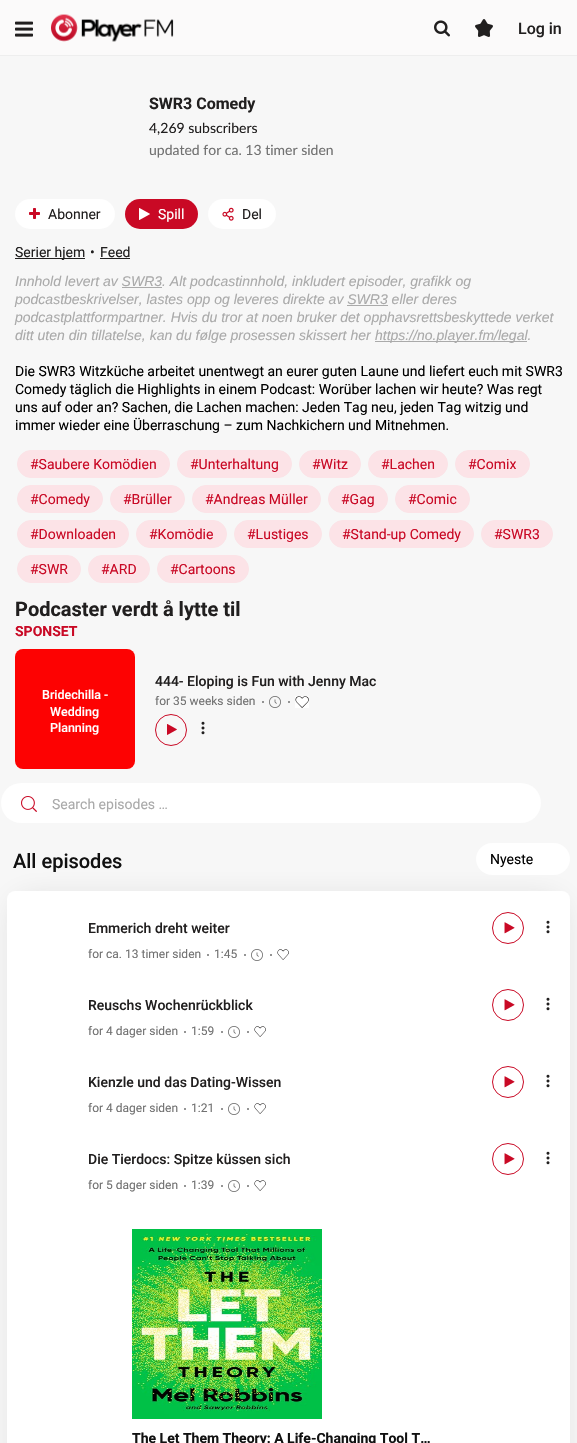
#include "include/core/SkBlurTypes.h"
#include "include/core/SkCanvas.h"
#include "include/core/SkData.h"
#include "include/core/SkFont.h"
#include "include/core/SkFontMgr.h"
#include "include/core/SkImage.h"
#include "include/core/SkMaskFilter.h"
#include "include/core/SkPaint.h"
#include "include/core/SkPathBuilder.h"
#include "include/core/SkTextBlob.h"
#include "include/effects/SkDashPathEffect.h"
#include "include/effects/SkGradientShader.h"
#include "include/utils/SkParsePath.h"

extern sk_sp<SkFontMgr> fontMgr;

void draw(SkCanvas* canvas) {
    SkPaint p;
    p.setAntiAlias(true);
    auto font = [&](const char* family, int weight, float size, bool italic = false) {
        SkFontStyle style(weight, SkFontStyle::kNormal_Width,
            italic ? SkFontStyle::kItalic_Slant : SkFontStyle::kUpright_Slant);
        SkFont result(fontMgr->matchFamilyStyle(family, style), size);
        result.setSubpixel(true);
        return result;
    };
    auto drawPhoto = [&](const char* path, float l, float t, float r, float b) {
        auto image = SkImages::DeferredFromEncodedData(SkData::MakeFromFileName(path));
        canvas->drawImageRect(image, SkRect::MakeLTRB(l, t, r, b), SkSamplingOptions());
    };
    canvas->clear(0xFFF7F7F7);
    p.setColor(0xFFFBFAFA);
    canvas->drawRect(SkRect::MakeLTRB(0, 0, 577, 55), p);
    p.setColor(0xFFEEEEEE);
    canvas->drawRect(SkRect::MakeLTRB(0, 55, 577, 56), p);
    drawPhoto("media/1.png", 15, 21, 33, 37);
    drawPhoto("media/2.png", 51, 14, 174, 42);
    drawPhoto("media/3.png", 434, 20, 450, 37);
    drawPhoto("media/4.png", 475, 19, 493, 37);
    auto font1 = font("Roboto", 500, 16);
    p.setColor(0xFF211F1F);
    canvas->drawString("Log in", 518, 34, font1, p);
    auto font2 = font("Roboto", 700, 16);
    canvas->drawString("SWR3 Comedy", 149, 109, font2, p);
    auto font3 = font("Lato", 400, 14);
    canvas->drawString("4,269 subscribers", 149, 133, font3, p);
    p.setColor(0xFF717171);
    canvas->drawString("updated for ca. 13 timer siden", 149, 155, font3, p);
    p.setColor(0xFFFFFFFF);
    canvas->drawRoundRect(SkRect::MakeLTRB(15, 199, 115, 229), 15, 15, p);
    drawPhoto("media/5.png", 29, 208, 40, 219);
    auto font4 = font("Roboto", 400, 14);
    p.setColor(0xFF211F1F);
    canvas->drawString("Abonner", 48, 219, font4, p);
    p.setColor(0xFFC90925);
    canvas->drawRoundRect(SkRect::MakeLTRB(125, 199, 198, 229), 15, 15, p);
    drawPhoto("media/6.png", 139, 208, 150, 220);
    p.setColor(0xFFFFFFFF);
    canvas->drawString("Spill", 158, 219, font4, p);
    canvas->drawRoundRect(SkRect::MakeLTRB(208, 199, 276, 229), 15, 15, p);
    drawPhoto("media/7.png", 222, 207, 234, 221);
    p.setColor(0xFF211F1F);
    canvas->drawString("Del", 242, 219, font4, p);
    canvas->drawRect(SkRect::MakeLTRB(15, 258, 85, 259), p);
    {
        const struct { const char* s; float x, y; } items[] = {
            {"Serier hjem", 15, 257},
            {"•", 90, 257},
            {"Feed", 100, 257},
        };
        for (auto [s, x, y] : items) {
            canvas->drawString(s, x, y, font4, p);
        }
    }
    canvas->drawRect(SkRect::MakeLTRB(100, 258, 130, 259), p);
    auto font5 = font("Liberation Sans", 400, 14, true);
    p.setColor(0xFFAAAAAA);
    canvas->drawString("Innhold levert av SWR3. Alt podcastinnhold, inkludert episoder, grafikk og", 15, 286, font5, p);
    canvas->drawRect(SkRect::MakeLTRB(122, 287, 162, 288), p);
    canvas->drawString("podcastbeskrivelser, lastes opp og leveres direkte av SWR3 eller deres", 15, 304, font5, p);
    canvas->drawRect(SkRect::MakeLTRB(347, 305, 388, 306), p);
    canvas->drawString("podcastplattformpartner. Hvis du tror at noen bruker det opphavsrettsbeskyttede verket", 15, 322, font5, p);
    canvas->drawString("ditt uten din tillatelse, kan du følge prosessen skissert her", 15, 340, font5, p);
    canvas->drawRect(SkRect::MakeLTRB(375, 341, 527, 342), p);
    canvas->drawString("https://no.player.fm/legal.", 375, 340, font5, p);
    p.setColor(0xFF000000);
    {
        const struct { const char* s; float x, y; } items[] = {
            {"Die SWR3 Witzküche arbeitet unentwegt an eurer guten Laune und liefert euch mit SWR3", 15, 376},
            {"Comedy täglich die Highlights in einem Podcast: Worüber lachen wir heute? Was regt", 15, 394},
            {"uns auf oder an? Sachen, die Lachen machen: Jeden Tag neu, jeden Tag witzig und", 15, 412},
            {"immer wieder eine Überraschung – zum Nachkichern und Mitnehmen.", 15, 430},
        };
        for (auto [s, x, y] : items) {
            canvas->drawString(s, x, y, font4, p);
        }
    }
    p.setColor(0xFFFCE3E7);
    canvas->drawRoundRect(SkRect::MakeLTRB(17.5f, 450.5f, 169.5f, 477.5f), 13.5f, 13.5f, p);
    p.setStyle(SkPaint::kStroke_Style);
    p.setStrokeWidth(1);
    canvas->drawRoundRect(SkRect::MakeLTRB(17.5f, 450.5f, 169.5f, 477.5f), 13.5f, 13.5f, p);
    p.setStyle(SkPaint::kFill_Style);
    p.setColor(0xFFC90925);
    canvas->drawString("#Saubere Komödien", 30, 469, font4, p);
    p.setColor(0xFFFCE3E7);
    canvas->drawRoundRect(SkRect::MakeLTRB(177.5f, 450.5f, 291.5f, 477.5f), 13.5f, 13.5f, p);
    p.setStyle(SkPaint::kStroke_Style);
    canvas->drawRoundRect(SkRect::MakeLTRB(177.5f, 450.5f, 291.5f, 477.5f), 13.5f, 13.5f, p);
    p.setStyle(SkPaint::kFill_Style);
    p.setColor(0xFFC90925);
    canvas->drawString("#Unterhaltung", 190, 469, font4, p);
    p.setColor(0xFFFCE3E7);
    canvas->drawRoundRect(SkRect::MakeLTRB(299.5f, 450.5f, 360.5f, 477.5f), 13.5f, 13.5f, p);
    p.setStyle(SkPaint::kStroke_Style);
    canvas->drawRoundRect(SkRect::MakeLTRB(299.5f, 450.5f, 360.5f, 477.5f), 13.5f, 13.5f, p);
    p.setStyle(SkPaint::kFill_Style);
    p.setColor(0xFFC90925);
    canvas->drawString("#Witz", 312, 469, font4, p);
    p.setColor(0xFFFCE3E7);
    canvas->drawRoundRect(SkRect::MakeLTRB(368.5f, 450.5f, 447.5f, 477.5f), 13.5f, 13.5f, p);
    p.setStyle(SkPaint::kStroke_Style);
    canvas->drawRoundRect(SkRect::MakeLTRB(368.5f, 450.5f, 447.5f, 477.5f), 13.5f, 13.5f, p);
    p.setStyle(SkPaint::kFill_Style);
    p.setColor(0xFFC90925);
    canvas->drawString("#Lachen", 381, 469, font4, p);
    p.setColor(0xFFFCE3E7);
    canvas->drawRoundRect(SkRect::MakeLTRB(455.5f, 450.5f, 529.5f, 477.5f), 13.5f, 13.5f, p);
    p.setStyle(SkPaint::kStroke_Style);
    canvas->drawRoundRect(SkRect::MakeLTRB(455.5f, 450.5f, 529.5f, 477.5f), 13.5f, 13.5f, p);
    p.setStyle(SkPaint::kFill_Style);
    p.setColor(0xFFC90925);
    canvas->drawString("#Comix", 468, 469, font4, p);
    p.setColor(0xFFFCE3E7);
    canvas->drawRoundRect(SkRect::MakeLTRB(17.5f, 485.5f, 102.5f, 512.5f), 13.5f, 13.5f, p);
    p.setStyle(SkPaint::kStroke_Style);
    canvas->drawRoundRect(SkRect::MakeLTRB(17.5f, 485.5f, 102.5f, 512.5f), 13.5f, 13.5f, p);
    p.setStyle(SkPaint::kFill_Style);
    p.setColor(0xFFC90925);
    canvas->drawString("#Comedy", 30, 504, font4, p);
    p.setColor(0xFFFCE3E7);
    canvas->drawRoundRect(SkRect::MakeLTRB(110.5f, 485.5f, 184.5f, 512.5f), 13.5f, 13.5f, p);
    p.setStyle(SkPaint::kStroke_Style);
    canvas->drawRoundRect(SkRect::MakeLTRB(110.5f, 485.5f, 184.5f, 512.5f), 13.5f, 13.5f, p);
    p.setStyle(SkPaint::kFill_Style);
    p.setColor(0xFFC90925);
    canvas->drawString("#Brüller", 123, 504, font4, p);
    p.setColor(0xFFFCE3E7);
    canvas->drawRoundRect(SkRect::MakeLTRB(192.5f, 485.5f, 320.5f, 512.5f), 13.5f, 13.5f, p);
    p.setStyle(SkPaint::kStroke_Style);
    canvas->drawRoundRect(SkRect::MakeLTRB(192.5f, 485.5f, 320.5f, 512.5f), 13.5f, 13.5f, p);
    p.setStyle(SkPaint::kFill_Style);
    p.setColor(0xFFC90925);
    canvas->drawString("#Andreas Müller", 205, 504, font4, p);
    p.setColor(0xFFFCE3E7);
    canvas->drawRoundRect(SkRect::MakeLTRB(328.5f, 485.5f, 387.5f, 512.5f), 13.5f, 13.5f, p);
    p.setStyle(SkPaint::kStroke_Style);
    canvas->drawRoundRect(SkRect::MakeLTRB(328.5f, 485.5f, 387.5f, 512.5f), 13.5f, 13.5f, p);
    p.setStyle(SkPaint::kFill_Style);
    p.setColor(0xFFC90925);
    canvas->drawString("#Gag", 341, 504, font4, p);
    p.setColor(0xFFFCE3E7);
    canvas->drawRoundRect(SkRect::MakeLTRB(395.5f, 485.5f, 469.5f, 512.5f), 13.5f, 13.5f, p);
    p.setStyle(SkPaint::kStroke_Style);
    canvas->drawRoundRect(SkRect::MakeLTRB(395.5f, 485.5f, 469.5f, 512.5f), 13.5f, 13.5f, p);
    p.setStyle(SkPaint::kFill_Style);
    p.setColor(0xFFC90925);
    canvas->drawString("#Comic", 408, 504, font4, p);
    p.setColor(0xFFFCE3E7);
    canvas->drawRoundRect(SkRect::MakeLTRB(17.5f, 520.5f, 128.5f, 547.5f), 13.5f, 13.5f, p);
    p.setStyle(SkPaint::kStroke_Style);
    canvas->drawRoundRect(SkRect::MakeLTRB(17.5f, 520.5f, 128.5f, 547.5f), 13.5f, 13.5f, p);
    p.setStyle(SkPaint::kFill_Style);
    p.setColor(0xFFC90925);
    canvas->drawString("#Downloaden", 30, 539, font4, p);
    p.setColor(0xFFFCE3E7);
    canvas->drawRoundRect(SkRect::MakeLTRB(136.5f, 520.5f, 226.5f, 547.5f), 13.5f, 13.5f, p);
    p.setStyle(SkPaint::kStroke_Style);
    canvas->drawRoundRect(SkRect::MakeLTRB(136.5f, 520.5f, 226.5f, 547.5f), 13.5f, 13.5f, p);
    p.setStyle(SkPaint::kFill_Style);
    p.setColor(0xFFC90925);
    canvas->drawString("#Komödie", 149, 539, font4, p);
    p.setColor(0xFFFCE3E7);
    canvas->drawRoundRect(SkRect::MakeLTRB(234.5f, 520.5f, 321.5f, 547.5f), 13.5f, 13.5f, p);
    p.setStyle(SkPaint::kStroke_Style);
    canvas->drawRoundRect(SkRect::MakeLTRB(234.5f, 520.5f, 321.5f, 547.5f), 13.5f, 13.5f, p);
    p.setStyle(SkPaint::kFill_Style);
    p.setColor(0xFFC90925);
    canvas->drawString("#Lustiges", 247, 539, font4, p);
    p.setColor(0xFFFCE3E7);
    canvas->drawRoundRect(SkRect::MakeLTRB(329.5f, 520.5f, 473.5f, 547.5f), 13.5f, 13.5f, p);
    p.setStyle(SkPaint::kStroke_Style);
    canvas->drawRoundRect(SkRect::MakeLTRB(329.5f, 520.5f, 473.5f, 547.5f), 13.5f, 13.5f, p);
    p.setStyle(SkPaint::kFill_Style);
    p.setColor(0xFFC90925);
    canvas->drawString("#Stand-up Comedy", 342, 539, font4, p);
    p.setColor(0xFFFCE3E7);
    canvas->drawRoundRect(SkRect::MakeLTRB(481.5f, 520.5f, 552.5f, 547.5f), 13.5f, 13.5f, p);
    p.setStyle(SkPaint::kStroke_Style);
    canvas->drawRoundRect(SkRect::MakeLTRB(481.5f, 520.5f, 552.5f, 547.5f), 13.5f, 13.5f, p);
    p.setStyle(SkPaint::kFill_Style);
    p.setColor(0xFFC90925);
    canvas->drawString("#SWR3", 494, 539, font4, p);
    p.setColor(0xFFFCE3E7);
    canvas->drawRoundRect(SkRect::MakeLTRB(17.5f, 555.5f, 80.5f, 582.5f), 13.5f, 13.5f, p);
    p.setStyle(SkPaint::kStroke_Style);
    canvas->drawRoundRect(SkRect::MakeLTRB(17.5f, 555.5f, 80.5f, 582.5f), 13.5f, 13.5f, p);
    p.setStyle(SkPaint::kFill_Style);
    p.setColor(0xFFC90925);
    canvas->drawString("#SWR", 30, 574, font4, p);
    p.setColor(0xFFFCE3E7);
    canvas->drawRoundRect(SkRect::MakeLTRB(88.5f, 555.5f, 149.5f, 582.5f), 13.5f, 13.5f, p);
    p.setStyle(SkPaint::kStroke_Style);
    canvas->drawRoundRect(SkRect::MakeLTRB(88.5f, 555.5f, 149.5f, 582.5f), 13.5f, 13.5f, p);
    p.setStyle(SkPaint::kFill_Style);
    p.setColor(0xFFC90925);
    canvas->drawString("#ARD", 101, 574, font4, p);
    p.setColor(0xFFFCE3E7);
    canvas->drawRoundRect(SkRect::MakeLTRB(157.5f, 555.5f, 248.5f, 582.5f), 13.5f, 13.5f, p);
    p.setStyle(SkPaint::kStroke_Style);
    canvas->drawRoundRect(SkRect::MakeLTRB(157.5f, 555.5f, 248.5f, 582.5f), 13.5f, 13.5f, p);
    p.setStyle(SkPaint::kFill_Style);
    p.setColor(0xFFC90925);
    canvas->drawString("#Cartoons", 170, 574, font4, p);
    auto font6 = font("Roboto", 700, 20);
    p.setColor(0xFF211F1F);
    canvas->drawString("Podcaster verdt å lytte til", 15, 616, font6, p);
    auto font7 = font("Roboto", 700, 14);
    p.setColor(0xFFC90925);
    canvas->drawString("SPONSET", 15, 636, font7, p);
    p.setColor(0xFFFD0202);
    canvas->drawRoundRect(SkRect::MakeLTRB(15, 649, 135, 769), 8, 8, p);
    auto font8 = font("Roboto", 500, 12.5f);
    p.setColor(0xFFFFFFFF);
    {
        const struct { const char* s; float x, y; } items[] = {
            {"Bridechilla -", 42, 699},
            {"Wedding", 50, 716},
            {"Planning", 50, 732},
        };
        for (auto [s, x, y] : items) {
            canvas->drawString(s, x, y, font8, p);
        }
    }
    auto font9 = font("Roboto", 500, 14);
    p.setColor(0xFF211F1F);
    canvas->drawString("444- Eloping is Fun with Jenny Mac", 155, 686, font9, p);
    p.setStyle(SkPaint::kStroke_Style);
    p.setColor(0xFFC90925);
    canvas->drawCircle(171, 730, 15.5f, p);
    drawPhoto("media/8.png", 167, 724, 177, 735);
    drawPhoto("media/9.png", 201, 721, 205, 735);
    auto font10 = font("Roboto", 400, 12);
    p.setStyle(SkPaint::kFill_Style);
    p.setColor(0xFF717171);
    canvas->drawString("for 35 weeks siden", 155, 705, font10, p);
    canvas->drawCircle(263, 702, 1, p);
    drawPhoto("media/10.png", 269, 696, 281, 708);
    canvas->drawCircle(289, 702, 1, p);
    drawPhoto("media/11.png", 295, 696, 309, 708);
    p.setColor(0xFFFFFFFF);
    canvas->drawRoundRect(SkRect::MakeLTRB(1, 783, 541, 823), 20, 20, p);
    drawPhoto("media/12.png", 21, 796, 37, 812);
    p.setColor(0xFFAAAAAA);
    canvas->drawString("Search episodes …", 52, 809, font4, p);
    p.setColor(0x29211F1F);
    p.setMaskFilter(SkMaskFilter::MakeBlur(kNormal_SkBlurStyle, 16));
    canvas->drawRect(SkRect::MakeLTRB(19, 903, 558, 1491), p);
    p.setMaskFilter(nullptr);
    p.setColor(0xFFFFFFFF);
    canvas->drawRoundRect(SkRect::MakeLTRB(476, 843, 570, 875), 16, 16, p);
    p.setColor(0xFF000000);
    canvas->drawString("Nyeste", 490, 864, font4, p);
    auto font11 = font("Roboto", 500, 20);
    p.setColor(0xFF111111);
    canvas->drawString("All episodes", 13, 868, font11, p);
    p.setColor(0xFFFFFFFF);
    canvas->drawRoundRect(SkRect::MakeLTRB(7, 891, 570, 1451), 8, 8, p);
    p.setColor(0xFF211F1F);
    canvas->drawString("Emmerich dreht weiter", 88, 933, font9, p);
    p.setStyle(SkPaint::kStroke_Style);
    p.setColor(0xFFC90925);
    canvas->drawCircle(508, 928, 15.5f, p);
    drawPhoto("media/13.png", 504, 922, 515, 934);
    drawPhoto("media/14.png", 546, 920, 550, 934);
    p.setStyle(SkPaint::kFill_Style);
    p.setColor(0xFF717171);
    canvas->drawString("for ca. 13 timer siden", 88, 958, font10, p);
    canvas->drawCircle(208, 955, 1, p);
    canvas->drawString("1:45", 214, 958, font10, p);
    canvas->drawCircle(245, 955, 1, p);
    drawPhoto("media/15.png", 251, 949, 263, 961);
    canvas->drawCircle(271, 955, 1, p);
    drawPhoto("media/16.png", 277, 949, 289, 960);
    p.setColor(0xFF211F1F);
    canvas->drawString("Reuschs Wochenrückblick", 88, 1010, font9, p);
    p.setStyle(SkPaint::kStroke_Style);
    p.setColor(0xFFC90925);
    canvas->drawCircle(508, 1005, 15.5f, p);
    drawPhoto("media/13.png", 504, 999, 515, 1011);
    drawPhoto("media/14.png", 546, 997, 550, 1011);
    p.setStyle(SkPaint::kFill_Style);
    p.setColor(0xFF717171);
    canvas->drawString("for 4 dager siden", 88, 1035, font10, p);
    canvas->drawCircle(185, 1032, 1, p);
    canvas->drawString("1:59", 191, 1035, font10, p);
    canvas->drawCircle(222, 1032, 1, p);
    drawPhoto("media/15.png", 228, 1026, 240, 1038);
    canvas->drawCircle(248, 1032, 1, p);
    drawPhoto("media/17.png", 254, 1026, 266, 1037);
    p.setColor(0xFF211F1F);
    canvas->drawString("Kienzle und das Dating-Wissen", 88, 1087, font9, p);
    p.setStyle(SkPaint::kStroke_Style);
    p.setColor(0xFFC90925);
    canvas->drawCircle(508, 1082, 15.5f, p);
    drawPhoto("media/13.png", 504, 1076, 515, 1088);
    drawPhoto("media/14.png", 546, 1074, 550, 1088);
    p.setStyle(SkPaint::kFill_Style);
    p.setColor(0xFF717171);
    canvas->drawString("for 4 dager siden", 88, 1112, font10, p);
    canvas->drawCircle(185, 1109, 1, p);
    canvas->drawString("1:21", 191, 1112, font10, p);
    canvas->drawCircle(222, 1109, 1, p);
    drawPhoto("media/15.png", 228, 1103, 240, 1115);
    canvas->drawCircle(248, 1109, 1, p);
    drawPhoto("media/17.png", 254, 1103, 266, 1114);
    p.setColor(0xFF211F1F);
    canvas->drawString("Die Tierdocs: Spitze küssen sich", 88, 1164, font9, p);
    p.setStyle(SkPaint::kStroke_Style);
    p.setColor(0xFFC90925);
    canvas->drawCircle(508, 1159, 15.5f, p);
    drawPhoto("media/13.png", 504, 1153, 515, 1165);
    drawPhoto("media/14.png", 546, 1151, 550, 1165);
    p.setStyle(SkPaint::kFill_Style);
    p.setColor(0xFF717171);
    canvas->drawString("for 5 dager siden", 88, 1189, font10, p);
    canvas->drawCircle(185, 1186, 1, p);
    canvas->drawString("1:39", 191, 1189, font10, p);
    canvas->drawCircle(222, 1186, 1, p);
    drawPhoto("media/15.png", 228, 1180, 240, 1192);
    canvas->drawCircle(248, 1186, 1, p);
    drawPhoto("media/17.png", 254, 1180, 266, 1191);
    drawPhoto("media/18.png", 132, 1229, 322, 1419);
    p.setColor(0xFF111111);
    canvas->drawString("The Let Them Theory: A Life-Changing Tool T…", 132, 1443, font7, p);
}
